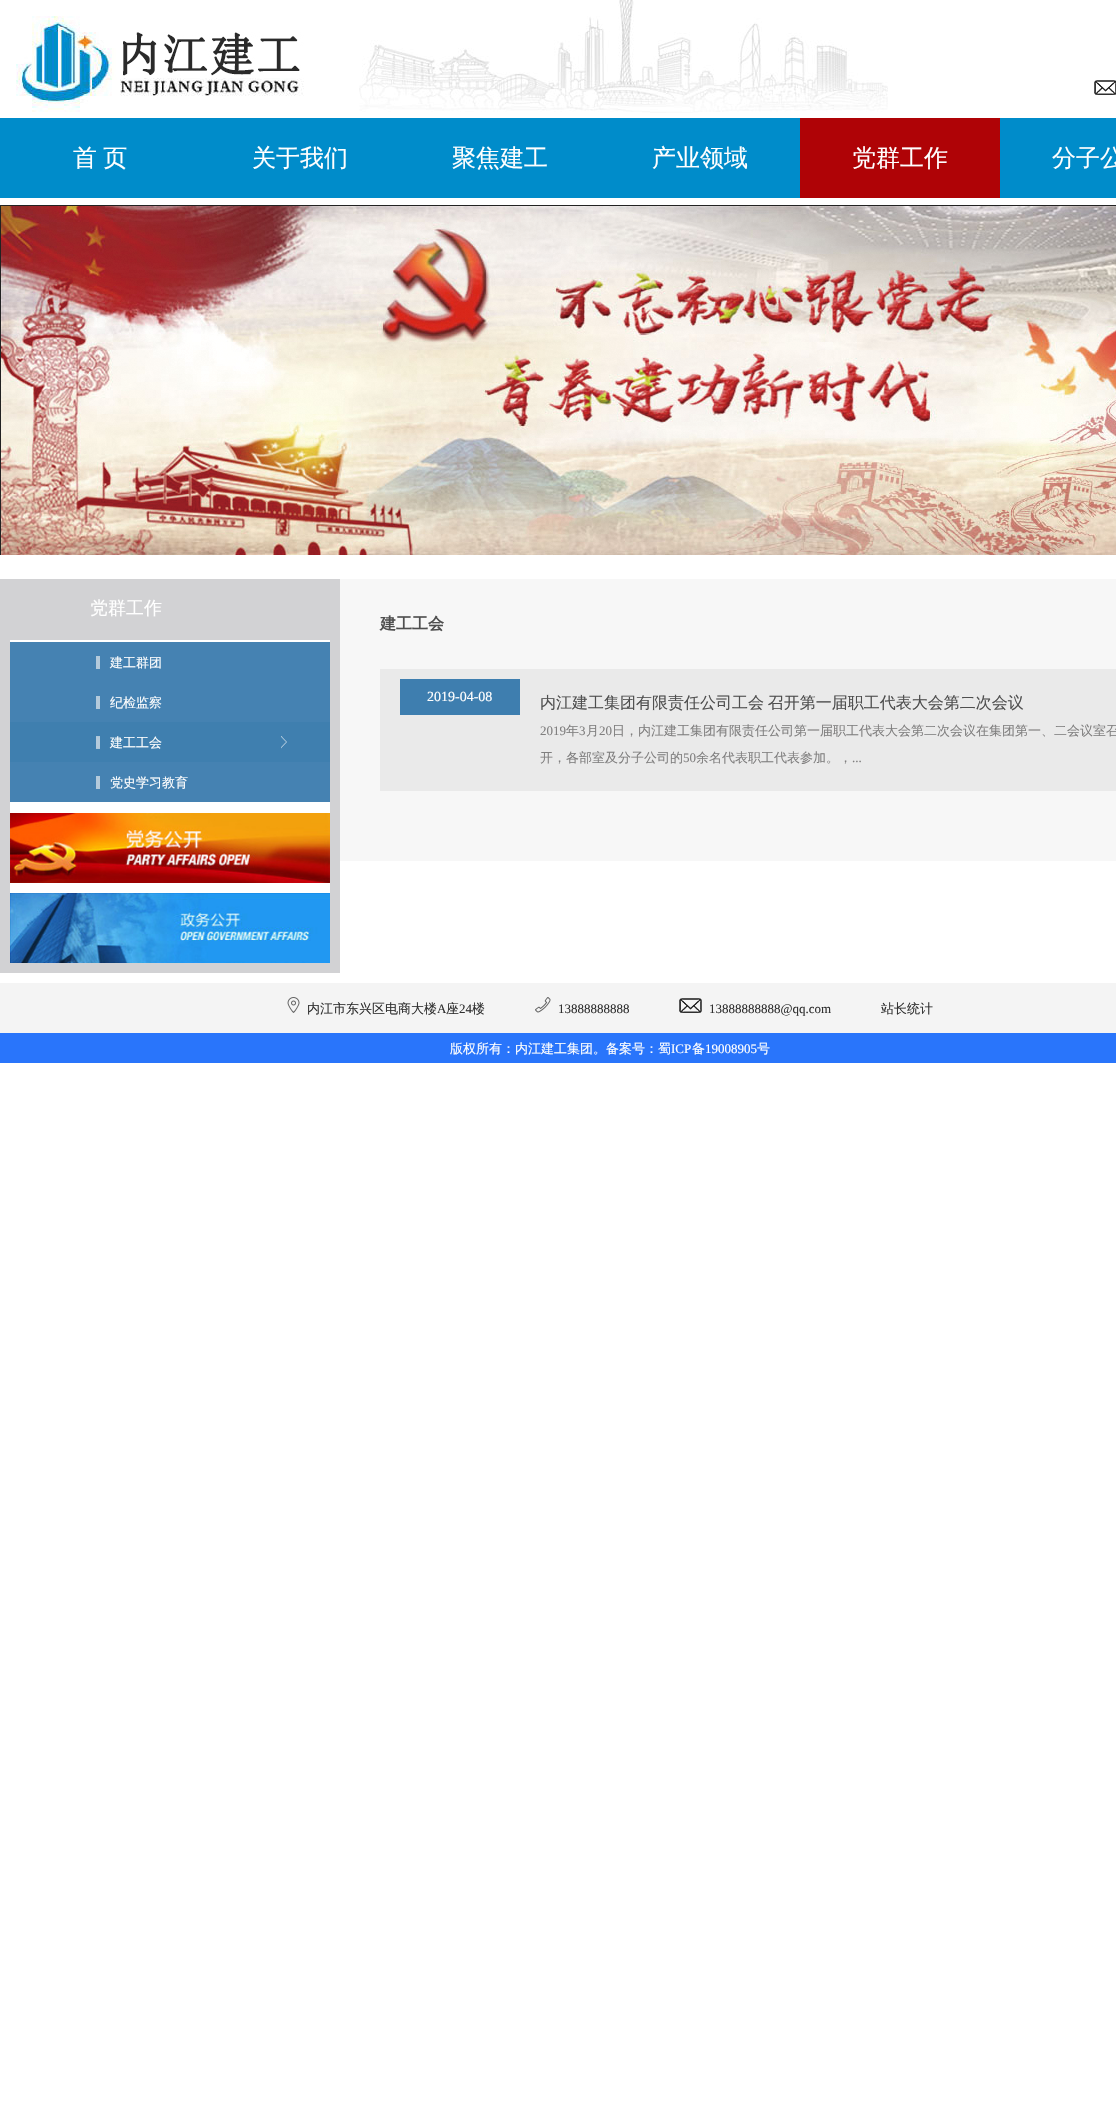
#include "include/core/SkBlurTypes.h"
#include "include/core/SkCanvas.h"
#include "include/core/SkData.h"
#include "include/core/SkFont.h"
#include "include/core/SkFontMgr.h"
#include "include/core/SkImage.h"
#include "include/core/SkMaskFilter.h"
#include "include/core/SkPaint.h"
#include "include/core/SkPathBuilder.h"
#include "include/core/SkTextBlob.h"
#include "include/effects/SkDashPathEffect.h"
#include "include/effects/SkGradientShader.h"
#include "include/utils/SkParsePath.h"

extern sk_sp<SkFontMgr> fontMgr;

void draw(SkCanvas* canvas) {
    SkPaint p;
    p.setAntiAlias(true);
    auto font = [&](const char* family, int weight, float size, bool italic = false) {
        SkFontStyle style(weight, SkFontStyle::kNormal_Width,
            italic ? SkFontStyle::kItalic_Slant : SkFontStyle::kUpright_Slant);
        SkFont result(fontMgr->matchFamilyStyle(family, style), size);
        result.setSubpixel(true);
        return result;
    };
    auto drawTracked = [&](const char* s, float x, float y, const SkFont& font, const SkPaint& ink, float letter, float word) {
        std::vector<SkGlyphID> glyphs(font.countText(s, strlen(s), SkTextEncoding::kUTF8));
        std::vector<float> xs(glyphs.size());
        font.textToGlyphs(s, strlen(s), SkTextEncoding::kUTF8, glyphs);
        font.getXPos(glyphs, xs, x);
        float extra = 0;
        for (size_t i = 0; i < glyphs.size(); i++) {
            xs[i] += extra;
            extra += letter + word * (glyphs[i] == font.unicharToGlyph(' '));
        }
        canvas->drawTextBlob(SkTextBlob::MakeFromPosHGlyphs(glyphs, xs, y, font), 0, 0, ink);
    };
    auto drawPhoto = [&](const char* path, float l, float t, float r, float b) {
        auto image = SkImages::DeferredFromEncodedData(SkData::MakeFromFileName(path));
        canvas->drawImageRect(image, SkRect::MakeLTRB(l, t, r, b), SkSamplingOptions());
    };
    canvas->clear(0xFFFFFFFF);
    drawPhoto("media/1.png", 16, 16, 304, 112);
    drawPhoto("media/2.png", 359, 0, 888, 113);
    drawPhoto("media/3.png", 1094, 80, 1116, 95);
    p.setColor(0xFF008CCA);
    canvas->drawRect(SkRect::MakeLTRB(0, 118, 1116, 198), p);
    auto font1 = font("WenQuanYi Zen Hei", 500, 24);
    p.setColor(0xFFFFFFFF);
    drawTracked("首 页", 73, 166, font1, p, 0, -1);
    {
        const struct { const char* s; float x, y; } items[] = {
            {"关于我们", 252, 166},
            {"聚焦建工", 452, 166},
            {"产业领域", 652, 166},
        };
        for (auto [s, x, y] : items) {
            canvas->drawString(s, x, y, font1, p);
        }
    }
    p.setColor(0xFFAF0306);
    canvas->drawRect(SkRect::MakeLTRB(800, 118, 1000, 198), p);
    p.setColor(0xFFFFFFFF);
    canvas->drawString("党群工作", 852, 166, font1, p);
    canvas->drawString("分子公", 1052, 166, font1, p);
    drawPhoto("media/4.png", 0, 205, 1116, 555);
    p.setColor(0xFFD2D2D4);
    canvas->drawRect(SkRect::MakeLTRB(0, 579, 340, 973), p);
    p.setColor(0xFFFFFFFF);
    canvas->drawRect(SkRect::MakeLTRB(10, 640, 330, 642), p);
    auto font2 = font("WenQuanYi Zen Hei", 500, 18);
    canvas->drawString("党群工作", 90, 614, font2, p);
    p.setColor(0xFF4582B2);
    canvas->drawRect(SkRect::MakeLTRB(10, 642, 330, 722), p);
    p.setColor(0xFFB4CADB);
    canvas->drawRect(SkRect::MakeLTRB(96, 656, 100, 669), p);
    auto font3 = font("WenQuanYi Zen Hei", 500, 13);
    p.setColor(0xFFFFFFFF);
    canvas->drawString("建工群团", 110, 667, font3, p);
    p.setColor(0xFFB4CADB);
    canvas->drawRect(SkRect::MakeLTRB(96, 696, 100, 709), p);
    p.setColor(0xFFFFFFFF);
    canvas->drawString("纪检监察", 110, 707, font3, p);
    p.setColor(0xFF3F7FAF);
    canvas->drawRect(SkRect::MakeLTRB(10, 722, 330, 762), p);
    drawPhoto("media/5.png", 96, 736, 287, 749);
    p.setColor(0xFFFFFFFF);
    canvas->drawString("建工工会", 110, 747, font3, p);
    p.setColor(0xFF4582B2);
    canvas->drawRect(SkRect::MakeLTRB(10, 762, 330, 802), p);
    p.setColor(0xFFB4CADB);
    canvas->drawRect(SkRect::MakeLTRB(96, 776, 100, 789), p);
    p.setColor(0xFFFFFFFF);
    canvas->drawString("党史学习教育", 110, 787, font3, p);
    canvas->drawRect(SkRect::MakeLTRB(10, 802, 330, 893), p);
    drawPhoto("media/6.png", 10, 813, 330, 883);
    drawPhoto("media/7.png", 10, 893, 330, 963);
    p.setColor(0xFFF7F7F7);
    canvas->drawRect(SkRect::MakeLTRB(340, 579, 1116, 861), p);
    auto font4 = font("WenQuanYi Zen Hei", 700, 16);
    p.setColor(0xFF4F4F4F);
    canvas->drawString("建工工会", 380, 629, font4, p);
    p.setColor(0xFFEAEAEA);
    canvas->drawRect(SkRect::MakeLTRB(380, 669, 1116, 791), p);
    p.setColor(0xFF3E7EAF);
    canvas->drawRect(SkRect::MakeLTRB(400, 679, 520, 715), p);
    auto font5 = font("Liberation Serif", 400, 14);
    p.setColor(0xFFFFFFFF);
    canvas->drawString("2019-04-08", 427, 701, font5, p);
    auto font6 = font("WenQuanYi Zen Hei", 500, 16);
    p.setColor(0xFF4F4F4F);
    drawTracked("内江建工集团有限责任公司工会 召开第一届职工代表大会第二次会议", 540, 708, font6, p, 0, -1);
    auto font7 = font("Liberation Serif", 400, 13);
    p.setColor(0xFF807F7F);
    canvas->drawString("2019", 540, 735, font7, p);
    canvas->drawString("年", 566, 735, font3, p);
    canvas->drawString("3", 579, 735, font7, p);
    canvas->drawString("月", 586, 735, font3, p);
    canvas->drawString("20", 599, 735, font7, p);
    canvas->drawString("日，内江建工集团有限责任公司第一届职工代表大会第二次会议在集团第一、二会议室召", 612, 735, font3, p);
    canvas->drawString("开，各部室及分子公司的", 540, 762, font3, p);
    canvas->drawString("50", 683, 762, font7, p);
    canvas->drawString("余名代表职工代表参加。，", 696, 762, font3, p);
    canvas->drawString("...", 852, 762, font7, p);
    p.setColor(0xFFF4F4F4);
    canvas->drawRect(SkRect::MakeLTRB(0, 983, 1116, 1033), p);
    drawPhoto("media/8.png", 287, 997, 300, 1013);
    p.setColor(0xFF2F2F2F);
    canvas->drawString("内江市东兴区电商大楼", 307, 1013, font3, p);
    canvas->drawString("A", 437, 1013, font7, p);
    canvas->drawString("座", 446, 1013, font3, p);
    canvas->drawString("24", 459, 1013, font7, p);
    canvas->drawString("楼", 472, 1013, font3, p);
    drawPhoto("media/9.png", 535, 997, 551, 1013);
    canvas->drawString("13888888888", 558, 1013, font7, p);
    drawPhoto("media/10.png", 679, 998, 702, 1013);
    canvas->drawString("13888888888@qq.com", 709, 1013, font7, p);
    canvas->drawString("站长统计", 881, 1013, font3, p);
    p.setColor(0xFF2975FB);
    canvas->drawRect(SkRect::MakeLTRB(0, 1033, 1116, 1063), p);
    p.setColor(0xFFFFFFFF);
    canvas->drawString("版权所有：内江建工集团。备案号：蜀", 450, 1053, font3, p);
    canvas->drawString("ICP", 671, 1053, font7, p);
    canvas->drawString("备", 692, 1053, font3, p);
    canvas->drawString("19008905", 705, 1053, font7, p);
    canvas->drawString("号", 757, 1053, font3, p);
}
